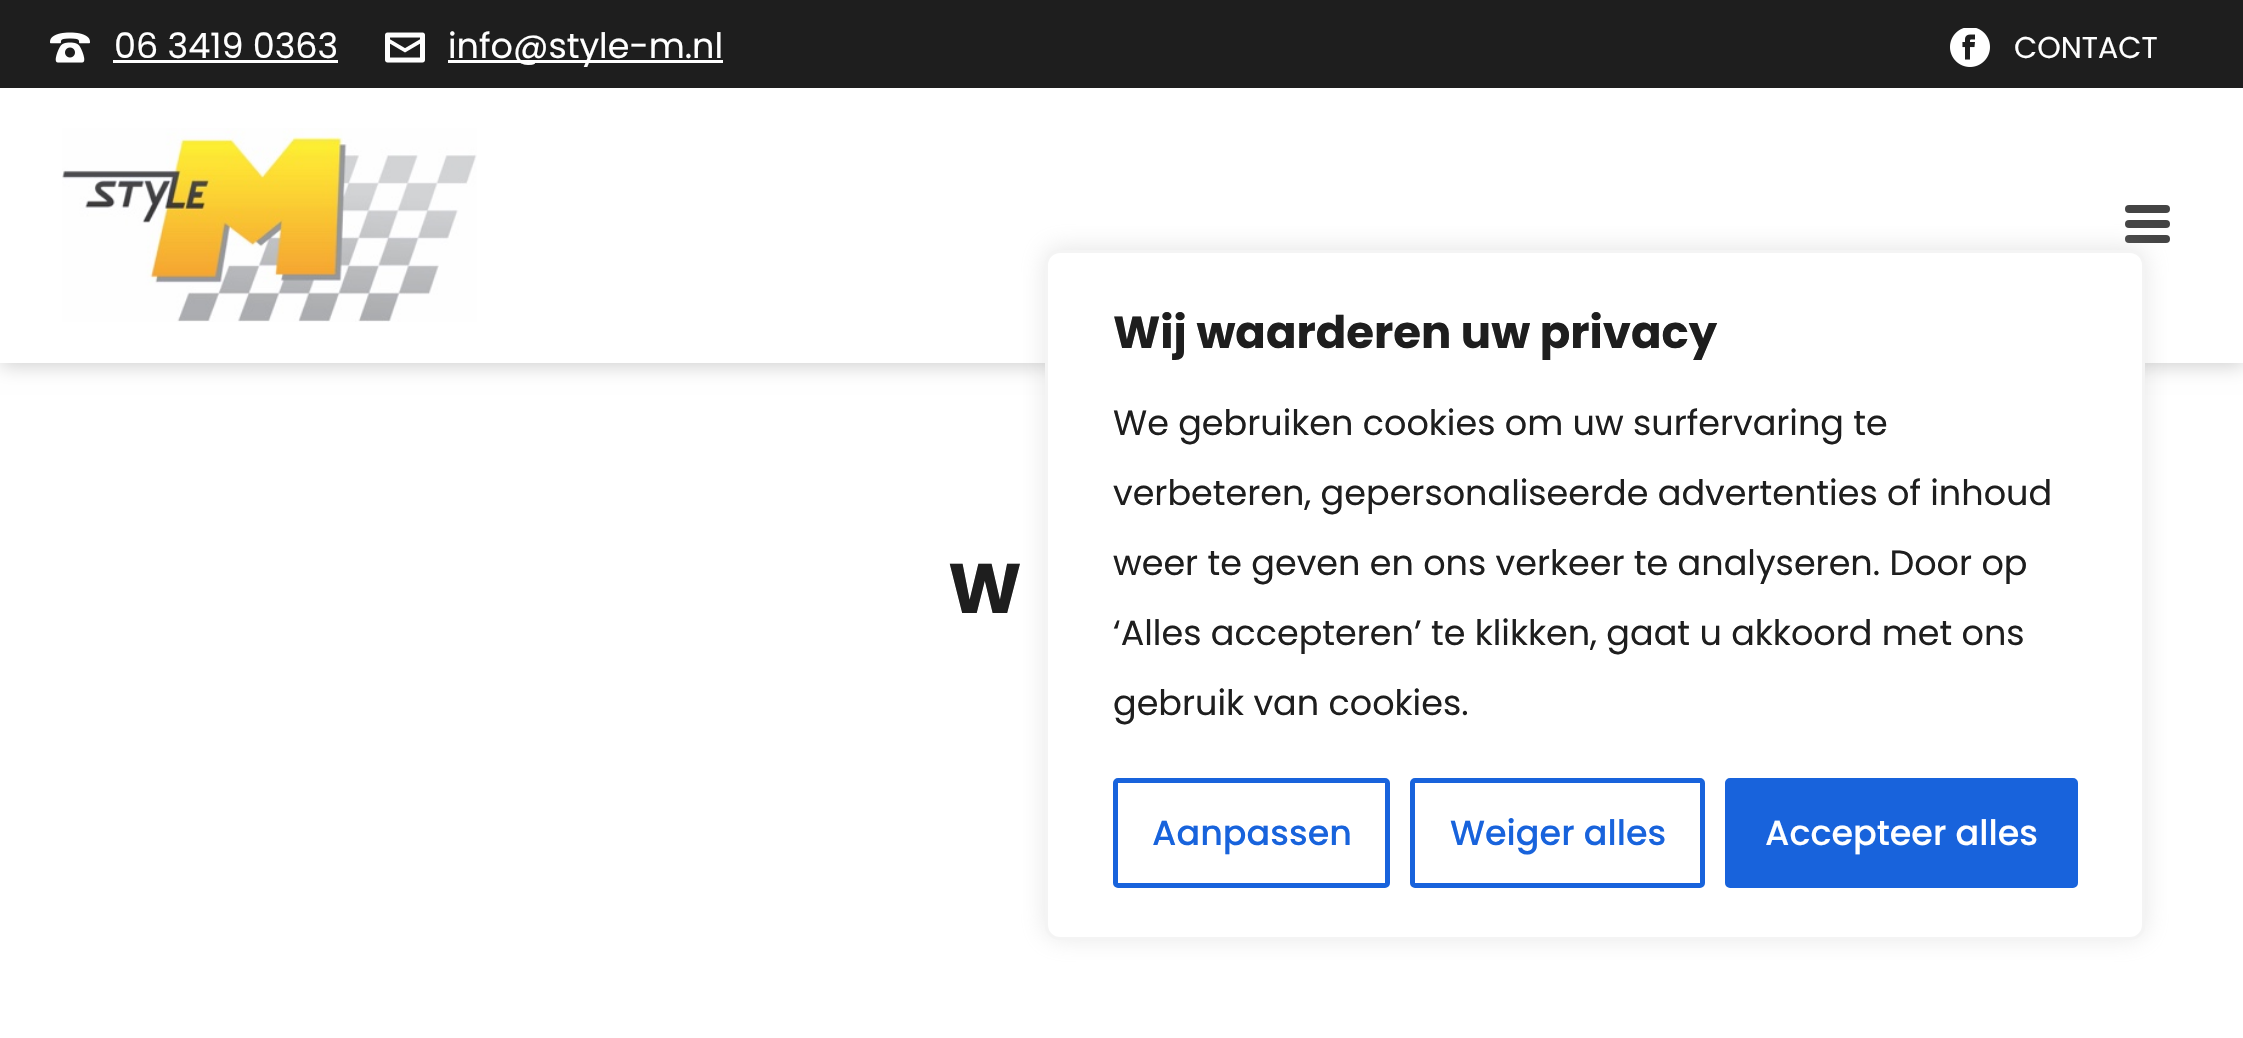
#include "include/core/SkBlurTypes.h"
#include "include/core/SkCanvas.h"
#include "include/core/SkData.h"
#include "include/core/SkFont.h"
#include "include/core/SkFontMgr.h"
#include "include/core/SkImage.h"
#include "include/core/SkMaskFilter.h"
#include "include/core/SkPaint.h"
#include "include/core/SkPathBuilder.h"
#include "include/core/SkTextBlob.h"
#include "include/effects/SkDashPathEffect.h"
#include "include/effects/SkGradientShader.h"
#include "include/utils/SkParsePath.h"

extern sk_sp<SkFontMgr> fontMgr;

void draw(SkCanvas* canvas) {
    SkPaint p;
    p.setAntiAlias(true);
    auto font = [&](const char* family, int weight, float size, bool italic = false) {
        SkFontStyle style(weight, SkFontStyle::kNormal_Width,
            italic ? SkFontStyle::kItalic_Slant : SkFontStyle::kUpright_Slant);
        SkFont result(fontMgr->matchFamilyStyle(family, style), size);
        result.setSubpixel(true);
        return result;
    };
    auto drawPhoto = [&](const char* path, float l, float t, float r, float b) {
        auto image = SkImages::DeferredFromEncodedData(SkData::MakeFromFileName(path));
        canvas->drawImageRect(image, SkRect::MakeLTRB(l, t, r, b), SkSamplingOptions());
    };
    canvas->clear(0xFFFFFFFF);
    p.setColor(0x33000000);
    p.setMaskFilter(SkMaskFilter::MakeBlur(kNormal_SkBlurStyle, 10));
    canvas->drawRect(SkRect::MakeLTRB(0, 90, 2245, 365), p);
    p.setMaskFilter(nullptr);
    p.setColor(0xFF1E1E1E);
    canvas->drawRect(SkRect::MakeLTRB(0, 0, 2243, 88), p);
    drawPhoto("media/1.png", 50, 32, 90, 63);
    auto font1 = font("Poppins", 400, 35);
    p.setColor(0xFFFFFFFF);
    canvas->drawString("06 3419 0363", 114, 58, font1, p);
    canvas->drawRect(SkRect::MakeLTRB(113, 60, 338, 63), p);
    drawPhoto("media/2.png", 385, 32, 425, 63);
    canvas->drawRect(SkRect::MakeLTRB(448, 60, 723, 63), p);
    canvas->drawString("info@style-m.nl", 448, 58, font1, p);
    drawPhoto("media/3.png", 1950, 28, 1990, 67);
    auto font2 = font("Poppins", 400, 30);
    canvas->drawString("CONTACT", 2014, 58, font2, p);
    canvas->drawRect(SkRect::MakeLTRB(0, 88, 2243, 363), p);
    drawPhoto("media/4.png", 62, 128, 477, 322);
    p.setColor(0xFF444444);
    canvas->drawRoundRect(SkRect::MakeLTRB(2125, 205, 2170, 213), 4, 4, p);
    canvas->drawRoundRect(SkRect::MakeLTRB(2125, 220, 2170, 228), 4, 4, p);
    canvas->drawRoundRect(SkRect::MakeLTRB(2125, 235, 2170, 243), 4, 4, p);
    auto font3 = font("Poppins", 700, 70);
    p.setColor(0xFF1E1E1E);
    canvas->drawString("W", 948, 613, font3, p);
    p.setColor(0x4DACABAB);
    p.setMaskFilter(SkMaskFilter::MakeBlur(kNormal_SkBlurStyle, 12.5f));
    canvas->drawRoundRect(SkRect::MakeLTRB(1045, 248, 2145, 938), 15, 15, p);
    p.setMaskFilter(nullptr);
    p.setColor(0xFFFFFFFF);
    canvas->drawRoundRect(SkRect::MakeLTRB(1046.5f, 251.5f, 2143.5f, 938.5f), 13.5f, 13.5f, p);
    p.setStyle(SkPaint::kStroke_Style);
    p.setStrokeWidth(3);
    p.setColor(0xFFF4F4F4);
    canvas->drawRoundRect(SkRect::MakeLTRB(1046.5f, 251.5f, 2143.5f, 938.5f), 13.5f, 13.5f, p);
    auto font4 = font("Poppins", 700, 45);
    p.setStyle(SkPaint::kFill_Style);
    p.setColor(0xFF1E1E1E);
    canvas->drawString("Wij waarderen uw privacy", 1113, 348, font4, p);
    {
        const struct { const char* s; float x, y; } items[] = {
            {"We gebruiken cookies om uw surfervaring te", 1113, 435},
            {"verbeteren, gepersonaliseerde advertenties of inhoud", 1113, 505},
            {"weer te geven en ons verkeer te analyseren. Door op", 1113, 575},
            {"‘Alles accepteren’ te klikken, gaat u akkoord met ons", 1113, 645},
            {"gebruik van cookies.", 1113, 715},
        };
        for (auto [s, x, y] : items) {
            canvas->drawString(s, x, y, font1, p);
        }
    }
    p.setStyle(SkPaint::kStroke_Style);
    p.setStrokeWidth(5);
    p.setColor(0xFF1863DC);
    canvas->drawRoundRect(SkRect::MakeLTRB(1115.5f, 780.5f, 1387.5f, 885.5f), 2.5f, 2.5f, p);
    auto font5 = font("Poppins", 500, 35);
    p.setStyle(SkPaint::kFill_Style);
    canvas->drawString("Aanpassen", 1152, 845, font5, p);
    p.setStyle(SkPaint::kStroke_Style);
    canvas->drawRoundRect(SkRect::MakeLTRB(1412.5f, 780.5f, 1702.5f, 885.5f), 2.5f, 2.5f, p);
    p.setStyle(SkPaint::kFill_Style);
    canvas->drawString("Weiger alles", 1450, 845, font5, p);
    canvas->drawRoundRect(SkRect::MakeLTRB(1727.5f, 780.5f, 2075.5f, 885.5f), 2.5f, 2.5f, p);
    p.setStyle(SkPaint::kStroke_Style);
    canvas->drawRoundRect(SkRect::MakeLTRB(1727.5f, 780.5f, 2075.5f, 885.5f), 2.5f, 2.5f, p);
    p.setStyle(SkPaint::kFill_Style);
    p.setColor(0xFFFFFFFF);
    canvas->drawString("Accepteer alles", 1765, 845, font5, p);
}
